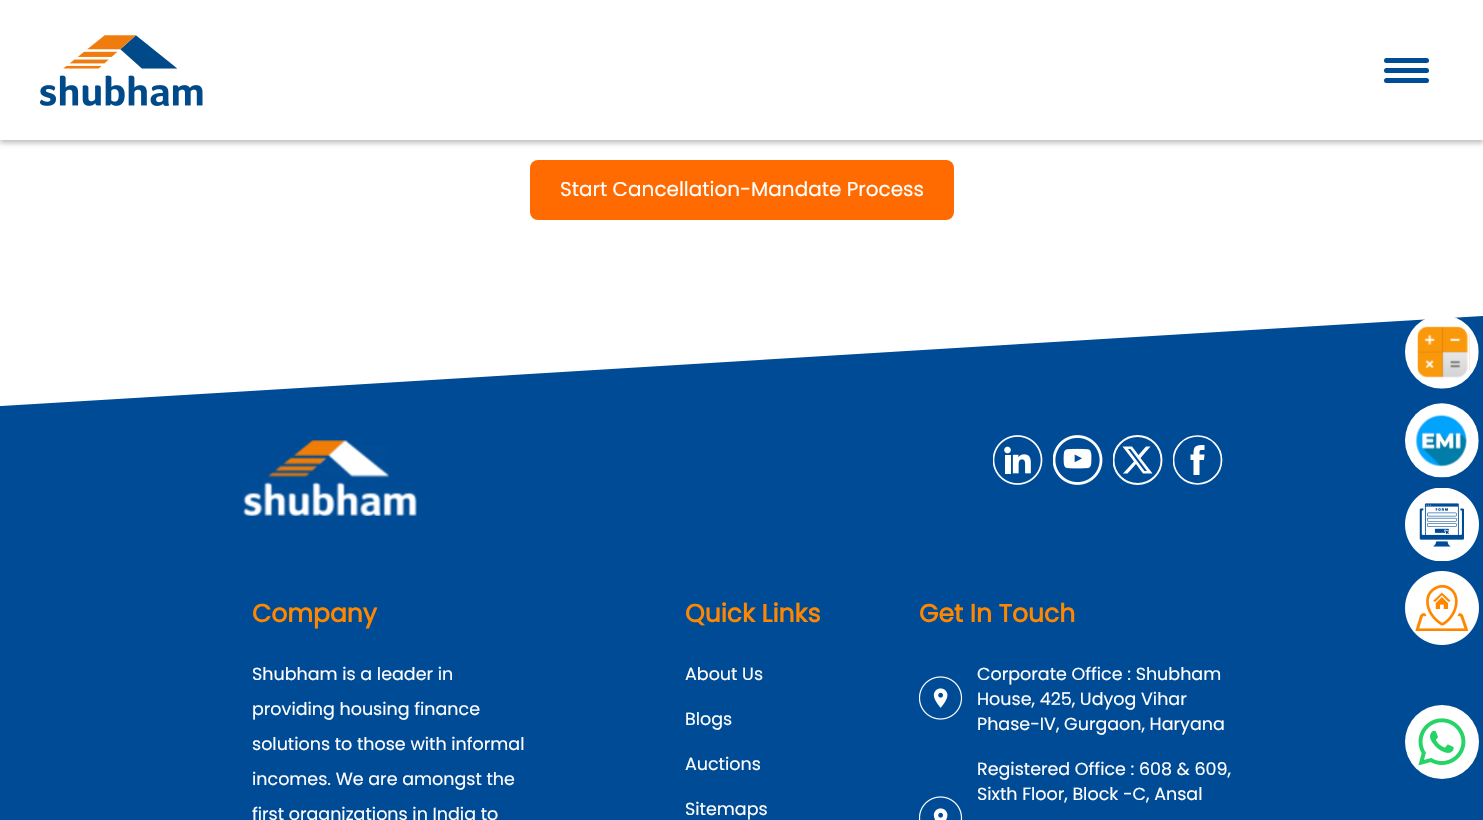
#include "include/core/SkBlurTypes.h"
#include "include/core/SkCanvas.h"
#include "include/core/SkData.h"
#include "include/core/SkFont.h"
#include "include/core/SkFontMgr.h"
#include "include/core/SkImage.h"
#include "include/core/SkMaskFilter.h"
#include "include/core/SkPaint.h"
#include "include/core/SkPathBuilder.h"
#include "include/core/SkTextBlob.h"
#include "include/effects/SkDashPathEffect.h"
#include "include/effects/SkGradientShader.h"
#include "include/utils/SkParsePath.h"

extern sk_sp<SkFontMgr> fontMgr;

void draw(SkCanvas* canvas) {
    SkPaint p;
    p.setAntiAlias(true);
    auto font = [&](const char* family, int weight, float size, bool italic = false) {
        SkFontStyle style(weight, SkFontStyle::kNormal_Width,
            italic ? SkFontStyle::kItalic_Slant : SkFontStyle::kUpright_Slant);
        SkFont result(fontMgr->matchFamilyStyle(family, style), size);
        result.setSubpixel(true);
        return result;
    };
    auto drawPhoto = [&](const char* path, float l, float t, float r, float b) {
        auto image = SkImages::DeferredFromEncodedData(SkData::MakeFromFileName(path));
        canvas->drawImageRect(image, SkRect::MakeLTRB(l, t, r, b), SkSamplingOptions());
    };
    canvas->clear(0xFFFFFFFF);
    p.setColor(0x40000000);
    p.setMaskFilter(SkMaskFilter::MakeBlur(kNormal_SkBlurStyle, 2.5f));
    canvas->drawRect(SkRect::MakeLTRB(0, 3, 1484, 143), p);
    p.setMaskFilter(nullptr);
    p.setColor(0xFFFFFFFF);
    canvas->drawRect(SkRect::MakeLTRB(0, 0, 1483, 140), p);
    drawPhoto("media/1.png", 40, 35, 203, 106);
    p.setColor(0xFF004C95);
    canvas->drawRoundRect(SkRect::MakeLTRB(1384, 58, 1429, 63), 2.5f, 2.5f, p);
    canvas->drawRoundRect(SkRect::MakeLTRB(1384, 68, 1429, 73), 2.5f, 2.5f, p);
    canvas->drawRoundRect(SkRect::MakeLTRB(1384, 78, 1429, 83), 2.5f, 2.5f, p);
    p.setColor(0xFFFF6B00);
    canvas->drawRoundRect(SkRect::MakeLTRB(530, 160, 954, 220), 8, 8, p);
    auto font1 = font("Poppins", 400, 20);
    p.setColor(0xFFFFFFFF);
    canvas->drawString("Start Cancellation-Mandate Process", 560, 196, font1, p);
    drawPhoto("media/2.png", 0, 316, 1483, 820);
    drawPhoto("media/3.png", 243, 440, 417, 516);
    drawPhoto("media/4.png", 993, 435, 1043, 485);
    drawPhoto("media/5.png", 1053, 435, 1103, 485);
    canvas->drawPath(SkPathBuilder().moveTo(1146, 446.5f).lineTo(1150.5f, 446.5f).lineTo(1140.5f, 458).lineTo(1152.5f, 473.5f).lineTo(1143, 473.5f).lineTo(1136, 464).lineTo(1127.5f, 473.5f).lineTo(1123, 473.5f).lineTo(1134, 461.5f).lineTo(1122.5f, 446.5f).lineTo(1132, 446.5f).lineTo(1138.5f, 455).close().moveTo(1144.5f, 471).lineTo(1147, 471).lineTo(1130.5f, 449).lineTo(1128, 449).close().detach(), p);
    canvas->save();
    canvas->clipRect(SkRect::MakeLTRB(1113, 435, 1163, 485));
    p.setStyle(SkPaint::kStroke_Style);
    p.setStrokeWidth(1.9f);
    canvas->drawCircle(1137.5f, 460, 24, p);
    canvas->restore();
    p.setStyle(SkPaint::kFill_Style);
    canvas->drawPath(SkPathBuilder().moveTo(1204.5f, 454.5f).lineTo(1199.5f, 454.5f).cubicTo(1199.5f, 449.5f, 1199.5f, 450, 1204.5f, 450).lineTo(1204.5f, 445).cubicTo(1195.5f, 445, 1193.5f, 445.5f, 1193.5f, 454.5f).lineTo(1190.5f, 454.5f).lineTo(1190.5f, 460).lineTo(1193.5f, 460).lineTo(1193.5f, 475).lineTo(1199.5f, 475).lineTo(1199.5f, 460).lineTo(1204, 460).close().detach(), p);
    canvas->save();
    canvas->clipRect(SkRect::MakeLTRB(1173, 435, 1223, 485));
    p.setStyle(SkPaint::kStroke_Style);
    p.setStrokeWidth(1.7f);
    canvas->drawCircle(1197.5f, 460, 24, p);
    canvas->restore();
    auto font2 = font("Poppins", 700, 25);
    p.setStyle(SkPaint::kFill_Style);
    p.setColor(0xFFFF8700);
    canvas->drawString("Company", 252, 622, font2, p);
    auto font3 = font("Poppins", 400, 17.5f);
    p.setColor(0xFFFFFFFF);
    {
        const struct { const char* s; float x, y; } items[] = {
            {"Shubham is a leader in", 252, 680},
            {"providing housing finance", 252, 715},
            {"solutions to those with informal", 252, 750},
            {"incomes. We are amongst the", 252, 785},
            {"first organizations in India to", 252, 820},
        };
        for (auto [s, x, y] : items) {
            canvas->drawString(s, x, y, font3, p);
        }
    }
    p.setColor(0xFFFF8700);
    canvas->drawString("Quick Links", 685, 622, font2, p);
    p.setColor(0xFFFFFFFF);
    {
        const struct { const char* s; float x, y; } items[] = {
            {"About Us", 685, 680},
            {"Blogs", 685, 725},
            {"Auctions", 685, 770},
            {"Sitemaps", 685, 815},
        };
        for (auto [s, x, y] : items) {
            canvas->drawString(s, x, y, font3, p);
        }
    }
    p.setColor(0xFFFF8700);
    canvas->drawString("Get In Touch", 919, 622, font2, p);
    drawPhoto("media/6.png", 919, 676, 963, 720);
    p.setColor(0xFFFFFFFF);
    {
        const struct { const char* s; float x, y; } items[] = {
            {"Corporate Office : Shubham", 977, 680},
            {"House, 425, Udyog Vihar", 977, 705},
            {"Phase-IV, Gurgaon, Haryana", 977, 730},
            {"Registered Office : 608 & 609,", 977, 775},
            {"Sixth Floor, Block -C, Ansal", 977, 800},
        };
        for (auto [s, x, y] : items) {
            canvas->drawString(s, x, y, font3, p);
        }
    }
    drawPhoto("media/7.png", 919, 796, 963, 820);
    drawPhoto("media/8.png", 1405, 317, 1479, 389);
    drawPhoto("media/9.png", 1405, 403, 1479, 478);
    drawPhoto("media/10.png", 1405, 488, 1479, 561);
    drawPhoto("media/11.png", 1405, 571, 1479, 645);
    canvas->drawCircle(1442, 742, 37, p);
    drawPhoto("media/12.png", 1418, 718, 1466, 766);
}
